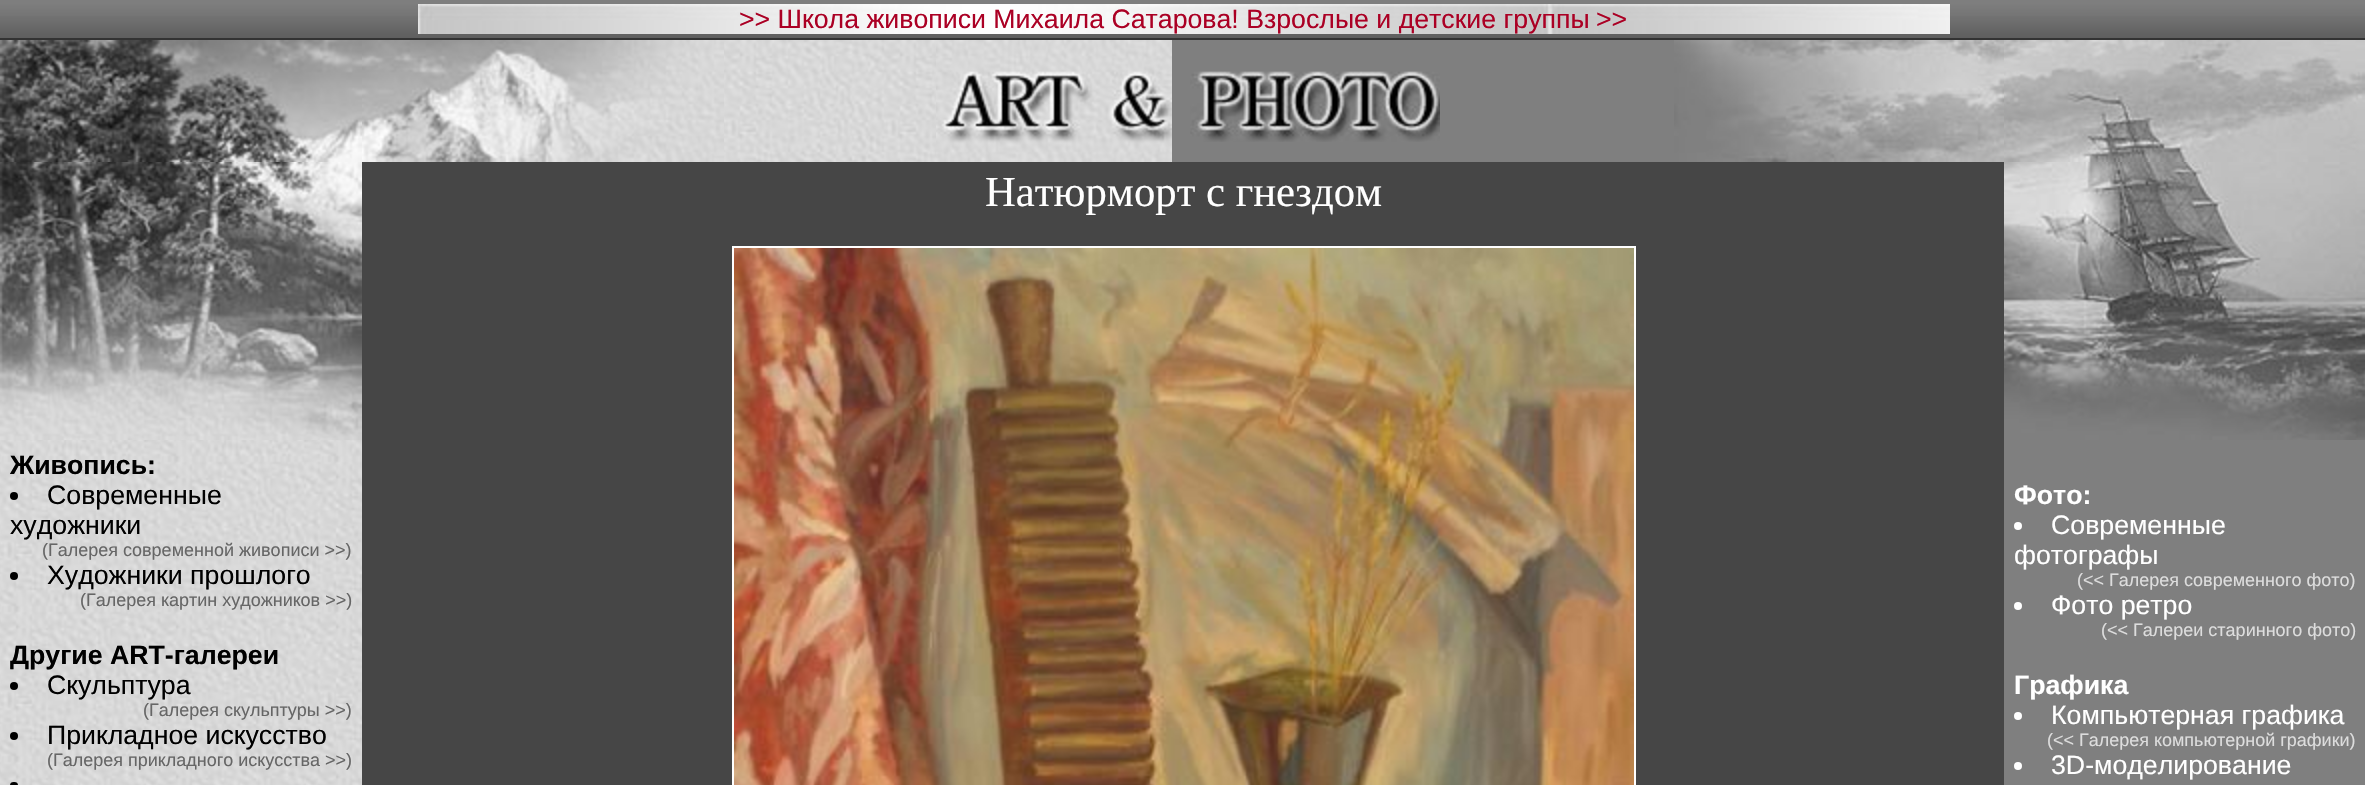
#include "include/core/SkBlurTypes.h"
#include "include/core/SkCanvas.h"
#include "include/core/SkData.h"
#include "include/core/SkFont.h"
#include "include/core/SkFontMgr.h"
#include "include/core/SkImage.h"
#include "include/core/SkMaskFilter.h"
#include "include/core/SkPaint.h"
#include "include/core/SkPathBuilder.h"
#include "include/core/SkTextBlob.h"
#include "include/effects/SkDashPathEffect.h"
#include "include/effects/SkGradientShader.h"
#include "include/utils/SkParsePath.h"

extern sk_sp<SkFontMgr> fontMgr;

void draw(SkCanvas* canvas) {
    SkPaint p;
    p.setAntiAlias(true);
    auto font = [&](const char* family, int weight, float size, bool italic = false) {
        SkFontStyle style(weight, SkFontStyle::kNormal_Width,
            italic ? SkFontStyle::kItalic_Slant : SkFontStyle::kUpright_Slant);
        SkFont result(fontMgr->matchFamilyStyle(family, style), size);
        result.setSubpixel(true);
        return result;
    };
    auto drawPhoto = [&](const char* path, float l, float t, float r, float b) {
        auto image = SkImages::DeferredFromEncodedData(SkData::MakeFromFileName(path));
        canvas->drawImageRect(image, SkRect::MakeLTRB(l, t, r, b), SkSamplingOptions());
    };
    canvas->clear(0xFF333333);
    drawPhoto("media/1.png", 0, 0, 2365, 38);
    drawPhoto("media/2.png", 418, 4, 1950, 34);
    auto font1 = font("Liberation Sans", 400, 26.7f);
    p.setColor(0xFFAB0024);
    canvas->drawString(">> Школа живописи Михаила Сатарова! Взрослые и детские группы", 739, 28, font1, p);
    canvas->drawString(">>", 1596, 28, font1, p);
    drawPhoto("media/3.png", 0, 40, 362, 162);
    drawPhoto("media/4.png", 362, 40, 724, 162);
    drawPhoto("media/5.png", 724, 40, 936, 162);
    drawPhoto("media/6.png", 936, 40, 1172, 162);
    p.setColor(0xFF7F7F7F);
    canvas->drawRect(SkRect::MakeLTRB(1172, 40, 1674, 162), p);
    drawPhoto("media/7.png", 1190, 71, 1440, 142);
    drawPhoto("media/8.png", 1674, 40, 2004, 162);
    drawPhoto("media/9.png", 2004, 40, 2365, 162);
    p.setColor(0xFF464646);
    canvas->drawRect(SkRect::MakeLTRB(362, 162, 2004, 785), p);
    auto font2 = font("Liberation Serif", 400, 42.75f);
    p.setColor(0xFFFFFFFF);
    canvas->drawString("Натюрморт с гнездом", 985, 206, font2, p);
    p.setStyle(SkPaint::kStroke_Style);
    p.setStrokeWidth(2);
    canvas->drawRect(SkRect::MakeLTRB(733, 247, 1635, 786), p);
    drawPhoto("media/10.png", 734, 248, 1634, 785);
    drawPhoto("media/11.png", 0, 440, 362, 785);
    drawPhoto("media/12.png", 0, 162, 362, 440);
    auto font3 = font("Liberation Sans", 700, 26.7f);
    p.setStyle(SkPaint::kFill_Style);
    p.setColor(0xFF000000);
    canvas->drawString("Живопись:", 10, 474, font3, p);
    canvas->drawCircle(14, 496, 4, p);
    canvas->drawString("Современные", 47, 504, font1, p);
    canvas->drawString("художники", 10, 534, font1, p);
    auto font4 = font("Liberation Sans", 400, 18);
    p.setColor(0xFF666666);
    canvas->drawString("(Галерея современной живописи >>)", 42, 556, font4, p);
    p.setColor(0xFF000000);
    canvas->drawCircle(14, 576, 4, p);
    canvas->drawString("Художники прошлого", 47, 584, font1, p);
    p.setColor(0xFF666666);
    canvas->drawString("(Галерея картин художников >>)", 80, 606, font4, p);
    p.setColor(0xFF000000);
    canvas->drawString("Другие ART-галереи", 10, 664, font3, p);
    canvas->drawCircle(14, 686, 4, p);
    canvas->drawString("Скульптура", 47, 694, font1, p);
    p.setColor(0xFF666666);
    canvas->drawString("(Галерея скульптуры >>)", 143, 716, font4, p);
    p.setColor(0xFF000000);
    canvas->drawCircle(14, 736, 4, p);
    canvas->drawString("Прикладное искусство", 47, 744, font1, p);
    p.setColor(0xFF666666);
    canvas->drawString("(Галерея прикладного искусства >>)", 47, 766, font4, p);
    p.setColor(0xFF000000);
    canvas->drawRoundRect(SkRect::MakeLTRB(10, 782, 18, 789), 4, 4, p);
    p.setColor(0xFF7F7F7F);
    canvas->drawRect(SkRect::MakeLTRB(2004, 440, 2365, 785), p);
    drawPhoto("media/13.png", 2004, 162, 2365, 440);
    p.setColor(0xFFFFFFFF);
    canvas->drawString("Фото:", 2014, 504, font3, p);
    canvas->drawCircle(2018, 526, 4, p);
    canvas->drawString("Современные", 2051, 534, font1, p);
    canvas->drawString("фотографы", 2014, 564, font1, p);
    p.setColor(0xFFDDDDDD);
    canvas->drawString("(<< Галерея современного фото)", 2077, 586, font4, p);
    p.setColor(0xFFFFFFFF);
    canvas->drawCircle(2018, 606, 4, p);
    canvas->drawString("Фото ретро", 2051, 614, font1, p);
    p.setColor(0xFFDDDDDD);
    canvas->drawString("(<< Галереи старинного фото)", 2101, 636, font4, p);
    p.setColor(0xFFFFFFFF);
    canvas->drawString("Графика", 2014, 694, font3, p);
    canvas->drawCircle(2018, 716, 4, p);
    canvas->drawString("Компьютерная графика", 2051, 724, font1, p);
    p.setColor(0xFFDDDDDD);
    canvas->drawString("(<< Галерея компьютерной графики)", 2047, 746, font4, p);
    p.setColor(0xFFFFFFFF);
    canvas->drawCircle(2018, 766, 4, p);
    canvas->drawString("3D-моделирование", 2051, 774, font1, p);
}
